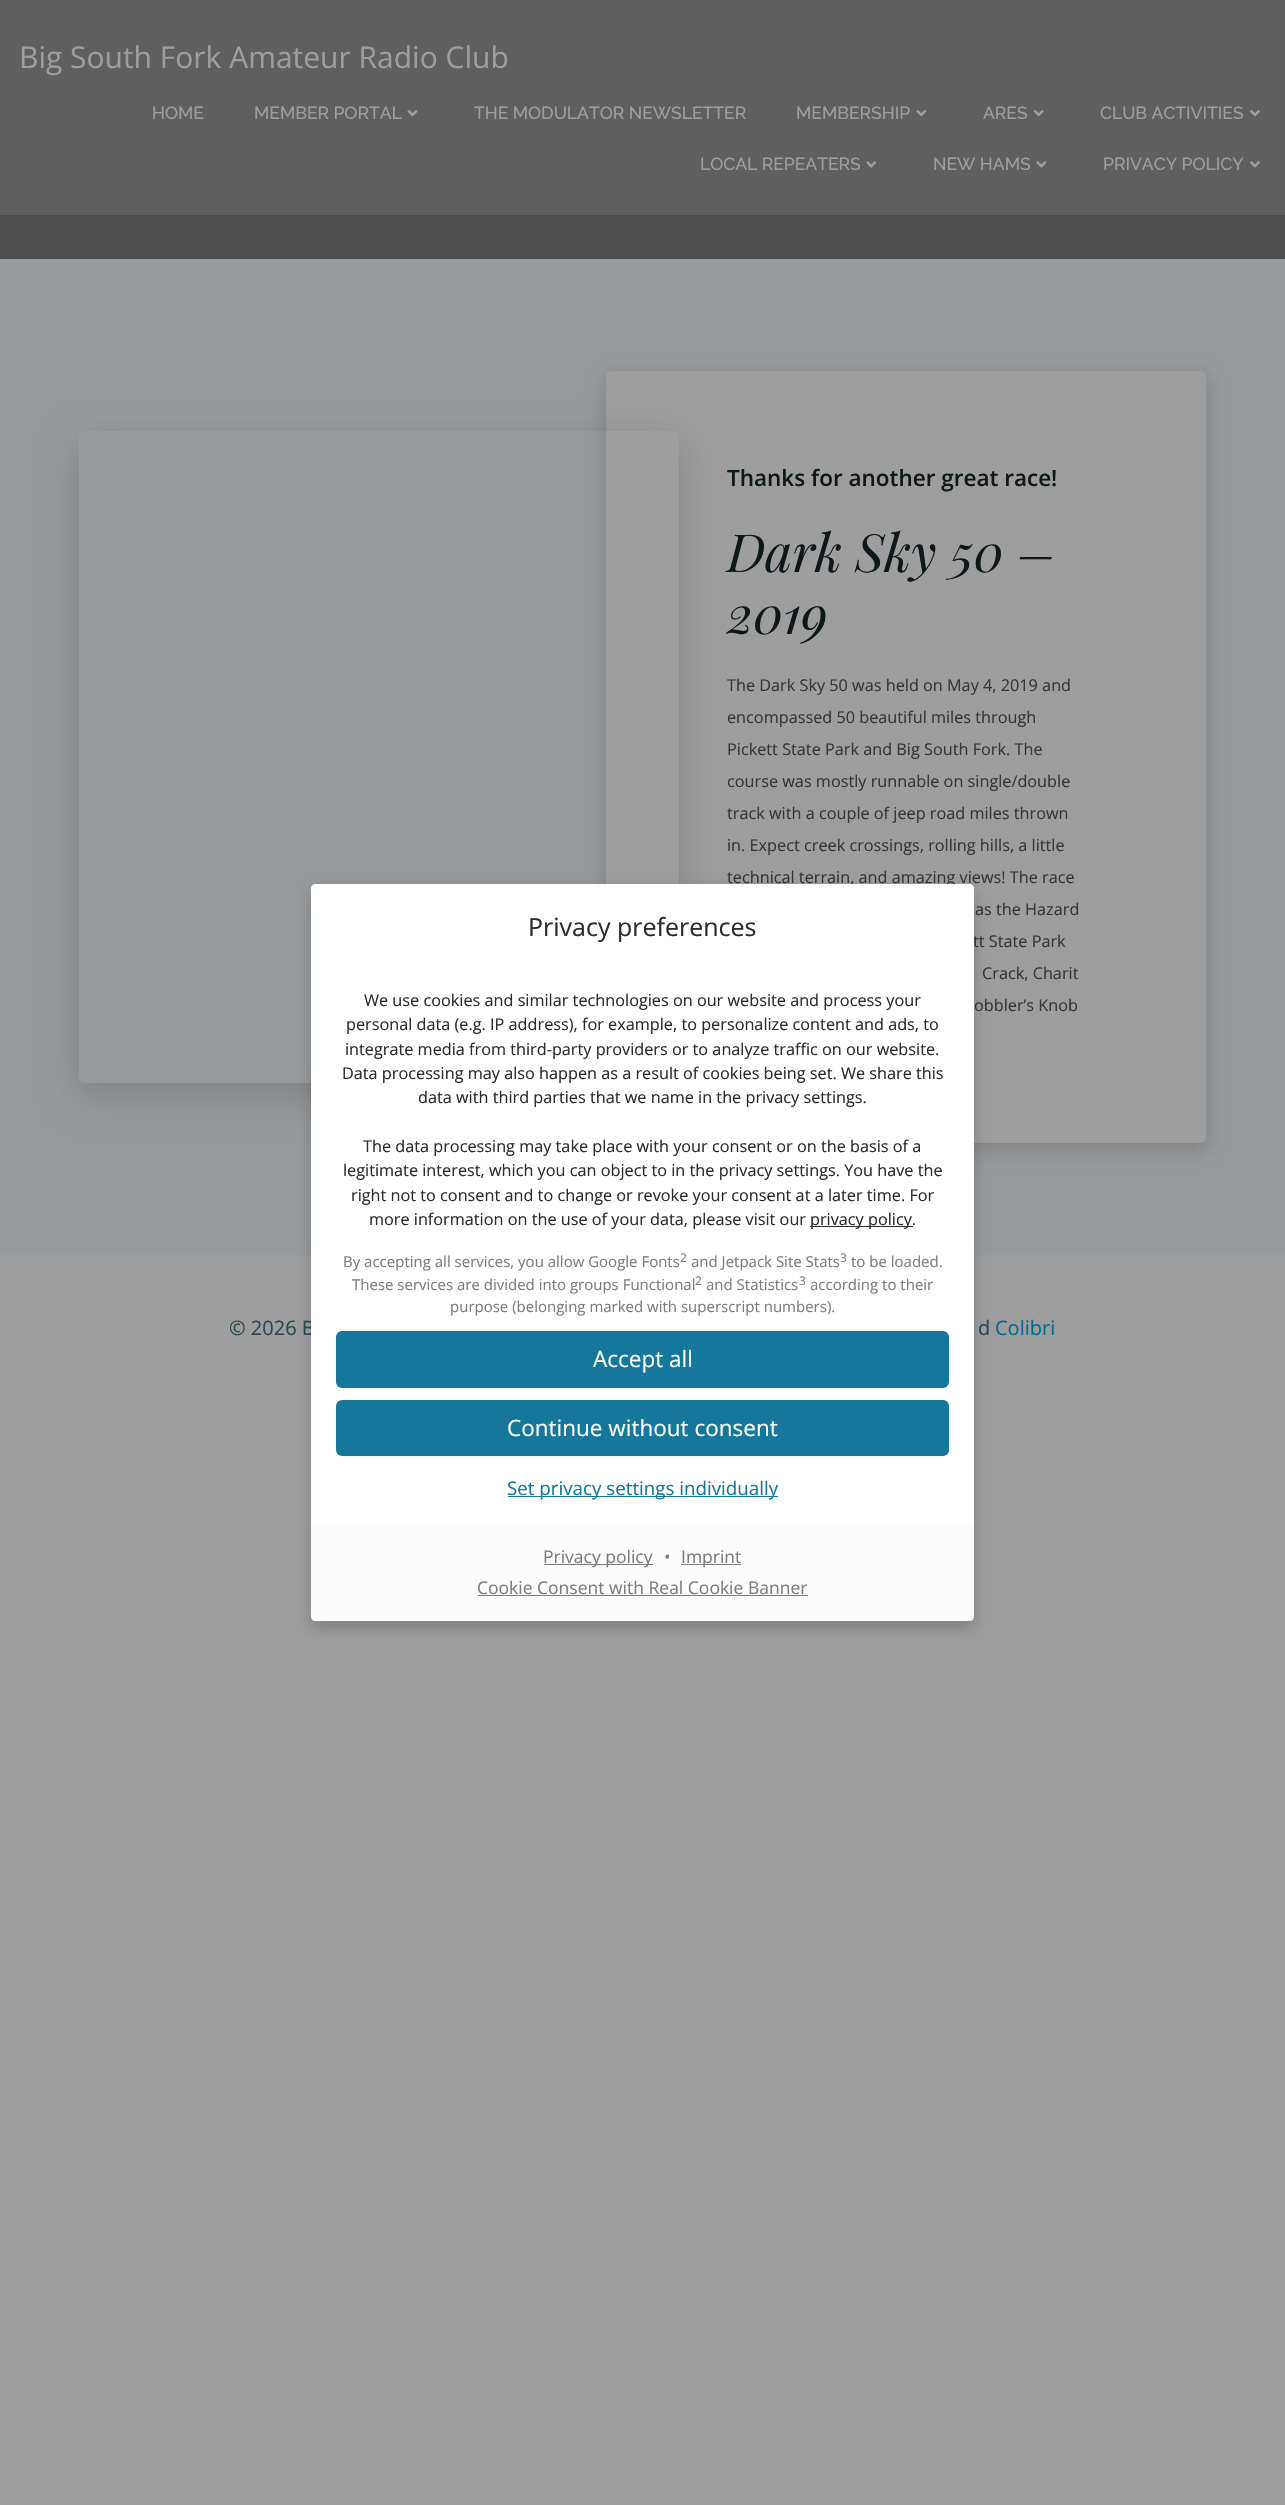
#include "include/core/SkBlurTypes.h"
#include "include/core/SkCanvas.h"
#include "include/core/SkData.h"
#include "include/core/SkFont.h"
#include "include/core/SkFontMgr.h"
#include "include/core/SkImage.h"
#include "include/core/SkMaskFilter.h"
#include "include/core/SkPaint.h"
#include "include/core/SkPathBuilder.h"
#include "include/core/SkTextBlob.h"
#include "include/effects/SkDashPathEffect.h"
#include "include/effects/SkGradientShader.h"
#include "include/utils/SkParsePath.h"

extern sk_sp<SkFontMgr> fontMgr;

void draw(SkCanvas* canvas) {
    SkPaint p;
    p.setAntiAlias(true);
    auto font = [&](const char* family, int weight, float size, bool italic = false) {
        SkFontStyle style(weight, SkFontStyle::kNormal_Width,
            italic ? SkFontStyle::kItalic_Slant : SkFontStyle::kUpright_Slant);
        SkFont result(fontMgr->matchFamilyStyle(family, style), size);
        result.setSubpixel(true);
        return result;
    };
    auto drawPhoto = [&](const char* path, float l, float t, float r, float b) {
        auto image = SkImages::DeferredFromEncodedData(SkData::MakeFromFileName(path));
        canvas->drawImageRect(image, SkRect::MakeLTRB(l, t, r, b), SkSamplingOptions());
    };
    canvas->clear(0xFF9E9E9E);
    p.setColor(0xFF5F5F5F);
    canvas->drawRect(SkRect::MakeLTRB(0, 0, 1285, 215), p);
    auto font1 = font("Open Sans", 400, 30);
    p.setColor(0xFF9E9E9E);
    canvas->drawString("Big South Fork Amateur Radio Club", 19, 68, font1, p);
    auto font2 = font("Raleway", 500, 17.5f);
    canvas->drawString("HOME", 152, 119, font2, p);
    canvas->drawString("MEMBER PORTAL", 254, 119, font2, p);
    drawPhoto("media/1.png", 407, 110, 418, 117);
    canvas->drawString("THE MODULATOR NEWSLETTER", 474, 119, font2, p);
    canvas->drawString("MEMBERSHIP", 796, 119, font2, p);
    drawPhoto("media/2.png", 916, 110, 927, 117);
    canvas->drawString("ARES", 983, 119, font2, p);
    drawPhoto("media/3.png", 1033, 110, 1044, 117);
    canvas->drawString("CLUB ACTIVITIES", 1100, 119, font2, p);
    drawPhoto("media/4.png", 1250, 110, 1260, 117);
    canvas->drawString("LOCAL REPEATERS", 700, 170, font2, p);
    drawPhoto("media/5.png", 866, 161, 877, 168);
    canvas->drawString("NEW HAMS", 933, 170, font2, p);
    drawPhoto("media/5.png", 1036, 161, 1047, 168);
    canvas->drawString("PRIVACY POLICY", 1103, 170, font2, p);
    drawPhoto("media/6.png", 1250, 161, 1260, 168);
    p.setColor(0xFF4F4F4F);
    canvas->drawRect(SkRect::MakeLTRB(0, 215, 1285, 259), p);
    p.setColor(0xFF989B9D);
    canvas->drawRect(SkRect::MakeLTRB(0, 259, 1285, 1255), p);
    p.setColor(0x26000000);
    p.setMaskFilter(SkMaskFilter::MakeBlur(kNormal_SkBlurStyle, 9.5f));
    canvas->drawRoundRect(SkRect::MakeLTRB(604, 375, 1209, 1151), 9, 9, p);
    p.setMaskFilter(nullptr);
    p.setColor(0xFF9E9E9E);
    canvas->drawRoundRect(SkRect::MakeLTRB(606, 371, 1206, 1143), 6, 6, p);
    canvas->save();
    canvas->clipPath(SkPathBuilder(SkPathFillType::kEvenOdd).moveTo(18, 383).lineTo(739, 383).lineTo(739, 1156).lineTo(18, 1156).close().moveTo(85, 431).lineTo(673, 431).cubicTo(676.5f, 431, 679, 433.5f, 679, 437).lineTo(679, 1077).cubicTo(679, 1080.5f, 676.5f, 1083, 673, 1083).lineTo(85, 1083).cubicTo(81.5f, 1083, 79, 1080.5f, 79, 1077).lineTo(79, 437).cubicTo(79, 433.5f, 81.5f, 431, 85, 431).close().detach(), true);
    p.setColor(0x26000000);
    p.setMaskFilter(SkMaskFilter::MakeBlur(kNormal_SkBlurStyle, 19));
    canvas->drawRoundRect(SkRect::MakeLTRB(76, 441, 681, 1098), 9, 9, p);
    p.setMaskFilter(nullptr);
    canvas->restore();
    auto font3 = font("Open Sans", 600, 22.5f);
    p.setColor(0xFF0E171A);
    canvas->drawString("Thanks for another great race!", 727, 486, font3, p);
    auto font4 = font("Playfair Display", 400, 52.5f, true);
    canvas->drawString("Dark Sky 50 –", 727, 572, font4, p);
    canvas->drawString("2019", 727, 634, font4, p);
    auto font5 = font("Open Sans", 400, 16.25f);
    p.setColor(0xFF353535);
    {
        const struct { const char* s; float x, y; } items[] = {
            {"The Dark Sky 50 was held on May 4, 2019 and", 727, 691},
            {"encompassed 50 beautiful miles through", 727, 723},
            {"Pickett State Park and Big South Fork. The", 727, 755},
            {"course was mostly runnable on single/double", 727, 787},
            {"track with a couple of jeep road miles thrown", 727, 819},
            {"in. Expect creek crossings, rolling hills, a little", 727, 851},
            {"technical terrain, and amazing views! The race", 727, 883},
            {"as the Hazard", 975, 915},
            {"tt State Park", 973, 947},
            {"Crack, Charit", 982, 979},
            {"obbler’s Knob", 974, 1011},
        };
        for (auto [s, x, y] : items) {
            canvas->drawString(s, x, y, font5, p);
        }
    }
    auto font6 = font("Open Sans", 400, 20);
    p.setColor(0xFF2B454F);
    canvas->drawString("© 2026 B", 229, 1335, font6, p);
    canvas->drawString("d", 978, 1335, font6, p);
    p.setColor(0xFF026997);
    canvas->drawString("Colibri", 995, 1335, font6, p);
    p.setColor(0x33000000);
    p.setMaskFilter(SkMaskFilter::MakeBlur(kNormal_SkBlurStyle, 8));
    canvas->drawRoundRect(SkRect::MakeLTRB(311, 890, 974, 1628), 4, 4, p);
    p.setMaskFilter(nullptr);
    p.setColor(0xFFFFFFFF);
    canvas->drawPath(SkPathBuilder().moveTo(315, 884).lineTo(970, 884).cubicTo(972, 884, 974, 886, 974, 888).lineTo(974, 970).lineTo(311, 970).lineTo(311, 888).cubicTo(311, 886, 313, 884, 315, 884).close().detach(), p);
    auto font7 = font("Open Sans", 400, 25);
    p.setColor(0xFF2B2B2B);
    canvas->drawString("Privacy preferences", 528, 936, font7, p);
    p.setColor(0xFFFFFFFF);
    canvas->drawRect(SkRect::MakeLTRB(311, 970, 974, 1526), p);
    p.setColor(0xFF2B2B2B);
    {
        const struct { const char* s; float x, y; } items[] = {
            {"We use cookies and similar technologies on our website and process your", 364, 1006},
            {"personal data (e.g. IP address), for example, to personalize content and ads, to", 346, 1030},
            {"integrate media from third-party providers or to analyze traffic on our website.", 345, 1055},
            {"Data processing may also happen as a result of cookies being set. We share this", 342, 1079},
            {"data with third parties that we name in the privacy settings.", 418, 1103},
            {"The data processing may take place with your consent or on the basis of a", 363, 1152},
            {"legitimate interest, which you can object to in the privacy settings. You have the", 343, 1176},
            {"right not to consent and to change or revoke your consent at a later time. For", 351, 1201},
            {"more information on the use of your data, please visit our", 369, 1225},
        };
        for (auto [s, x, y] : items) {
            canvas->drawString(s, x, y, font5, p);
        }
    }
    canvas->drawRect(SkRect::MakeLTRB(810, 1226, 913, 1227), p);
    canvas->drawString("privacy policy.", 810, 1225, font5, p);
    auto font8 = font("Open Sans", 400, 15);
    p.setColor(0xFF7C7C7C);
    canvas->drawString("By accepting all services, you allow Google Fonts", 343, 1267, font8, p);
    auto font9 = font("Open Sans", 400, 12);
    canvas->drawString("2", 680, 1262, font9, p);
    canvas->drawString("and Jetpack Site Stats", 691, 1267, font8, p);
    canvas->drawString("3", 840, 1262, font9, p);
    canvas->drawString("to be loaded.", 851, 1267, font8, p);
    canvas->drawString("These services are divided into groups Functional", 352, 1290, font8, p);
    canvas->drawString("2", 695, 1285, font9, p);
    canvas->drawString("and Statistics", 706, 1290, font8, p);
    canvas->drawString("3", 799, 1285, font9, p);
    canvas->drawString("according to their", 810, 1290, font8, p);
    canvas->drawString("purpose (belonging marked with superscript numbers).", 450, 1312, font8, p);
    p.setColor(0xFF15779B);
    canvas->drawRoundRect(SkRect::MakeLTRB(336, 1331, 949, 1388), 6, 6, p);
    auto font10 = font("Open Sans", 400, 22.5f);
    p.setColor(0xFFFFFFFF);
    canvas->drawString("Accept all", 593, 1367, font10, p);
    p.setColor(0xFF15779B);
    canvas->drawRoundRect(SkRect::MakeLTRB(336, 1400, 949, 1456), 6, 6, p);
    p.setColor(0xFFFFFFFF);
    canvas->drawString("Continue without consent", 507, 1436, font10, p);
    p.setColor(0xFF15779B);
    canvas->drawRect(SkRect::MakeLTRB(508, 1496, 778, 1497), p);
    auto font11 = font("Open Sans", 400, 18.75f);
    canvas->drawString("Set privacy settings individually", 507, 1495, font11, p);
    p.setColor(0xFFFCFCFC);
    canvas->drawPath(SkPathBuilder().moveTo(311, 1526).lineTo(974, 1526).lineTo(974, 1617).cubicTo(974, 1619, 972, 1621, 970, 1621).lineTo(315, 1621).cubicTo(313, 1621, 311, 1619, 311, 1617).close().detach(), p);
    p.setColor(0xFF7C7C7C);
    canvas->drawRect(SkRect::MakeLTRB(544, 1564, 653, 1565), p);
    auto font12 = font("Open Sans", 400, 17.5f);
    canvas->drawString("Privacy policy", 543, 1563, font12, p);
    canvas->drawString("•", 664, 1563, font12, p);
    canvas->drawRect(SkRect::MakeLTRB(681, 1564, 741, 1565), p);
    canvas->drawString("Imprint", 681, 1563, font12, p);
    canvas->drawString("Cookie Consent with Real Cookie Banner", 477, 1594, font12, p);
    canvas->drawRect(SkRect::MakeLTRB(478, 1595, 808, 1596), p);
}
